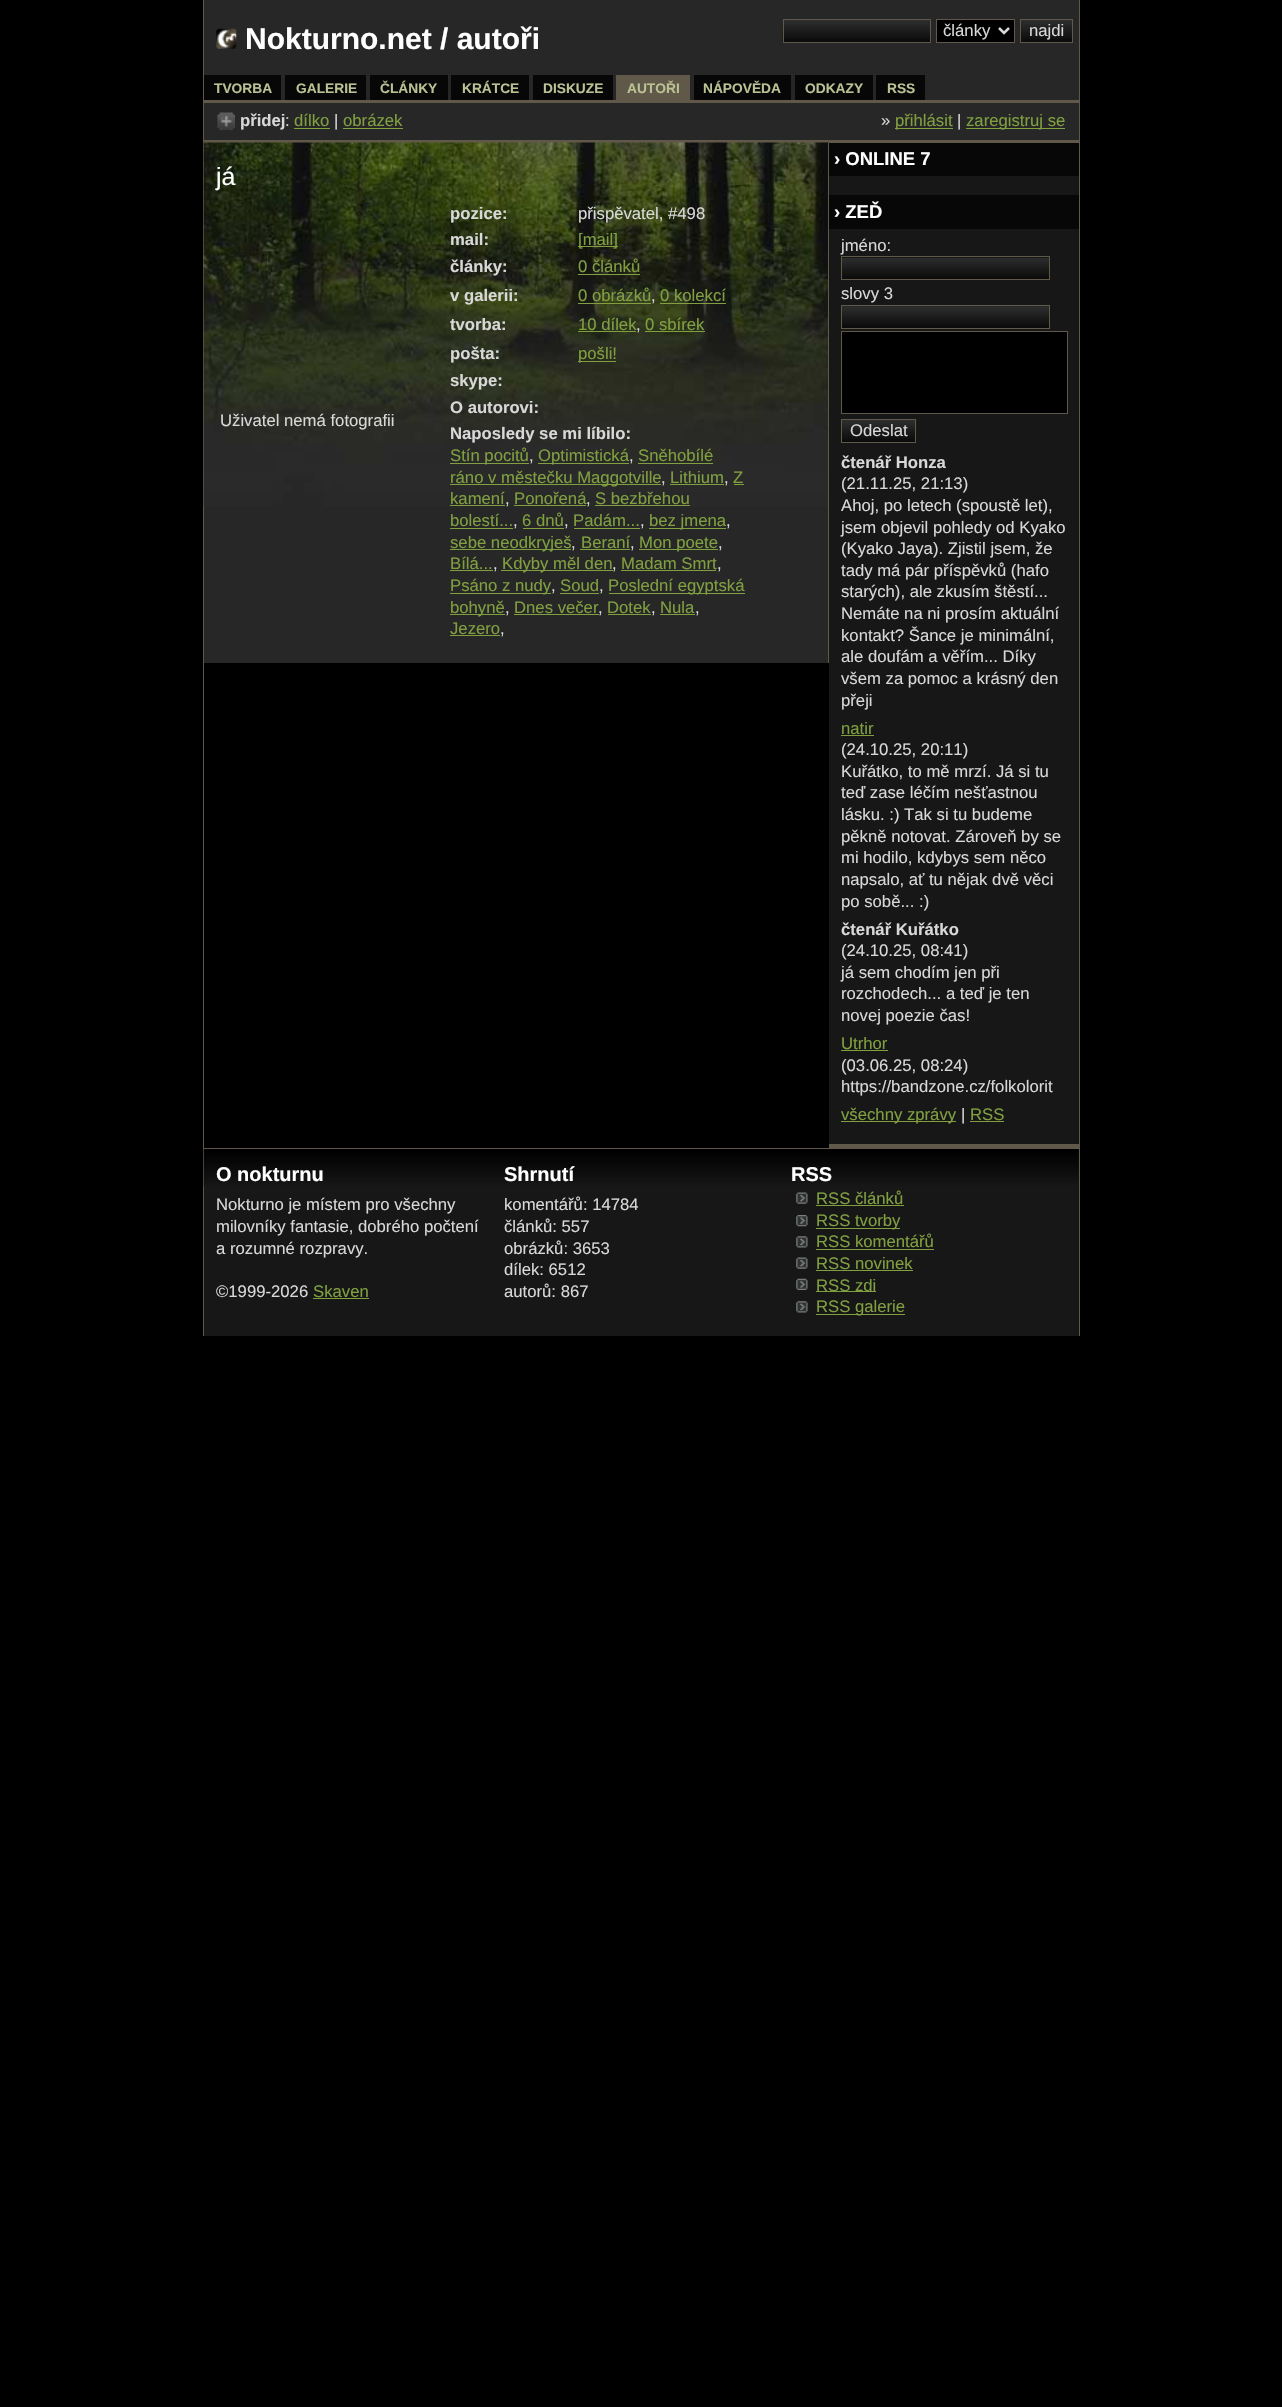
#include "include/core/SkBlurTypes.h"
#include "include/core/SkCanvas.h"
#include "include/core/SkData.h"
#include "include/core/SkFont.h"
#include "include/core/SkFontMgr.h"
#include "include/core/SkImage.h"
#include "include/core/SkMaskFilter.h"
#include "include/core/SkPaint.h"
#include "include/core/SkPathBuilder.h"
#include "include/core/SkTextBlob.h"
#include "include/effects/SkDashPathEffect.h"
#include "include/effects/SkGradientShader.h"
#include "include/utils/SkParsePath.h"

extern sk_sp<SkFontMgr> fontMgr;

void draw(SkCanvas* canvas) {
    SkPaint p;
    p.setAntiAlias(true);
    auto font = [&](const char* family, int weight, float size, bool italic = false) {
        SkFontStyle style(weight, SkFontStyle::kNormal_Width,
            italic ? SkFontStyle::kItalic_Slant : SkFontStyle::kUpright_Slant);
        SkFont result(fontMgr->matchFamilyStyle(family, style), size);
        result.setSubpixel(true);
        return result;
    };
    auto drawPhoto = [&](const char* path, float l, float t, float r, float b) {
        auto image = SkImages::DeferredFromEncodedData(SkData::MakeFromFileName(path));
        canvas->drawImageRect(image, SkRect::MakeLTRB(l, t, r, b), SkSamplingOptions());
    };
    canvas->clear(0xFF000000);
    {
        const struct { float l, t, r, b; SkColor color; } items[] = {
            {1079, 0, 1080, 1336, 0xFF605848},
            {203, 0, 204, 1336, 0xFF605848},
            {204, 0, 1079, 75, 0xFF272727},
        };
        for (auto [l, t, r, b, color] : items) {
            p.setColor(color);
            canvas->drawRect(SkRect::MakeLTRB(l, t, r, b), p);
        }
    }
    drawPhoto("media/1.png", 216, 28, 237, 49);
    auto font1 = font("Liberation Sans", 700, 30);
    p.setColor(0xFFFFFFFF);
    canvas->drawString("Nokturno.net / autoři", 245, 49, font1, p);
    drawPhoto("media/2.png", 782, 20, 932, 43);
    p.setStyle(SkPaint::kStroke_Style);
    p.setStrokeWidth(1);
    p.setColor(0xFF605848);
    canvas->drawRect(SkRect::MakeLTRB(783.5f, 19.5f, 930.5f, 42.5f), p);
    p.setStyle(SkPaint::kFill_Style);
    p.setColor(0xFF000000);
    canvas->drawRect(SkRect::MakeLTRB(936.5f, 19.5f, 1014.5f, 42.5f), p);
    p.setStyle(SkPaint::kStroke_Style);
    p.setColor(0xFF605848);
    canvas->drawRect(SkRect::MakeLTRB(936.5f, 19.5f, 1014.5f, 42.5f), p);
    p.setStrokeWidth(2.5f);
    p.setColor(0xFFD8D8D8);
    canvas->drawPath(SkPathBuilder().moveTo(999, 28).lineTo(1004, 33).lineTo(1009, 28).detach(), p);
    auto font2 = font("Liberation Sans", 400, 16.7f);
    p.setStyle(SkPaint::kFill_Style);
    canvas->drawString("články", 943, 36, font2, p);
    drawPhoto("media/3.png", 1021, 20, 1072, 42);
    p.setStyle(SkPaint::kStroke_Style);
    p.setStrokeWidth(1);
    p.setColor(0xFF605848);
    canvas->drawRect(SkRect::MakeLTRB(1020.5f, 19.5f, 1072.5f, 42.5f), p);
    p.setStyle(SkPaint::kFill_Style);
    p.setColor(0xFFD8D8D8);
    canvas->drawString("najdi", 1029, 36, font2, p);
    {
        const struct { float l, t, r, b; SkColor color; } items[] = {
            {925, 75, 1079, 100, 0xFF272727},
            {204, 100, 1079, 103, 0xFF605848},
            {204, 75, 281, 100, 0xFF070707},
            {281, 75, 285, 100, 0xFF272727},
        };
        for (auto [l, t, r, b, color] : items) {
            p.setColor(color);
            canvas->drawRect(SkRect::MakeLTRB(l, t, r, b), p);
        }
    }
    auto font3 = font("Liberation Sans", 700, 13.75f);
    p.setColor(0xFFBAC294);
    canvas->drawString("TVORBA", 214, 93, font3, p);
    p.setColor(0xFF070707);
    canvas->drawRect(SkRect::MakeLTRB(285, 75, 366, 100), p);
    p.setColor(0xFF272727);
    canvas->drawRect(SkRect::MakeLTRB(366, 75, 370, 100), p);
    p.setColor(0xFFBAC294);
    canvas->drawString("GALERIE", 296, 93, font3, p);
    p.setColor(0xFF070707);
    canvas->drawRect(SkRect::MakeLTRB(370, 75, 448, 100), p);
    p.setColor(0xFF272727);
    canvas->drawRect(SkRect::MakeLTRB(448, 75, 451, 100), p);
    p.setColor(0xFFBAC294);
    canvas->drawString("ČLÁNKY", 380, 93, font3, p);
    p.setColor(0xFF070707);
    canvas->drawRect(SkRect::MakeLTRB(451, 75, 529, 100), p);
    p.setColor(0xFF272727);
    canvas->drawRect(SkRect::MakeLTRB(529, 75, 533, 100), p);
    p.setColor(0xFFBAC294);
    canvas->drawString("KRÁTCE", 462, 93, font3, p);
    p.setColor(0xFF070707);
    canvas->drawRect(SkRect::MakeLTRB(533, 75, 613, 100), p);
    p.setColor(0xFF272727);
    canvas->drawRect(SkRect::MakeLTRB(613, 75, 616, 100), p);
    p.setColor(0xFFBAC294);
    canvas->drawString("DISKUZE", 543, 93, font3, p);
    p.setColor(0xFF605848);
    canvas->drawRect(SkRect::MakeLTRB(616, 75, 690, 100), p);
    p.setColor(0xFF272727);
    canvas->drawRect(SkRect::MakeLTRB(690, 75, 694, 100), p);
    p.setColor(0xFFBAC294);
    canvas->drawString("AUTOŘI", 627, 93, font3, p);
    p.setColor(0xFF070707);
    canvas->drawRect(SkRect::MakeLTRB(694, 75, 791, 100), p);
    p.setColor(0xFF272727);
    canvas->drawRect(SkRect::MakeLTRB(791, 75, 795, 100), p);
    p.setColor(0xFFBAC294);
    canvas->drawString("NÁPOVĚDA", 703, 93, font3, p);
    p.setColor(0xFF070707);
    canvas->drawRect(SkRect::MakeLTRB(795, 75, 873, 100), p);
    p.setColor(0xFF272727);
    canvas->drawRect(SkRect::MakeLTRB(873, 75, 876, 100), p);
    p.setColor(0xFFBAC294);
    canvas->drawString("ODKAZY", 805, 93, font3, p);
    p.setColor(0xFF070707);
    canvas->drawRect(SkRect::MakeLTRB(876, 75, 925, 100), p);
    p.setColor(0xFFBAC294);
    canvas->drawString("RSS", 887, 93, font3, p);
    p.setColor(0xFF272727);
    canvas->drawRect(SkRect::MakeLTRB(204, 103, 1079, 140), p);
    p.setColor(0xFF605848);
    canvas->drawRect(SkRect::MakeLTRB(204, 140, 1079, 143), p);
    drawPhoto("media/4.png", 217, 112, 235, 130);
    auto font4 = font("Liberation Sans", 700, 16.7f);
    p.setColor(0xFFD8D8D8);
    canvas->drawString("přidej", 240, 126, font4, p);
    canvas->drawString(":", 285, 126, font2, p);
    p.setColor(0xFF80A040);
    canvas->drawString("dílko", 294, 126, font2, p);
    canvas->drawRect(SkRect::MakeLTRB(294, 128, 330, 129), p);
    p.setColor(0xFFD8D8D8);
    canvas->drawString("|", 334, 126, font2, p);
    p.setColor(0xFF80A040);
    canvas->drawString("obrázek", 343, 126, font2, p);
    canvas->drawRect(SkRect::MakeLTRB(343, 128, 403, 129), p);
    p.setColor(0xFFD8D8D8);
    canvas->drawString("»", 881, 126, font2, p);
    p.setColor(0xFF80A040);
    canvas->drawRect(SkRect::MakeLTRB(895, 128, 953, 129), p);
    canvas->drawString("přihlásit", 895, 126, font2, p);
    p.setColor(0xFFD8D8D8);
    canvas->drawString("|", 957, 126, font2, p);
    p.setColor(0xFF80A040);
    canvas->drawRect(SkRect::MakeLTRB(966, 128, 1065, 129), p);
    canvas->drawString("zaregistruj se", 966, 126, font2, p);
    p.setColor(0xFF272727);
    canvas->drawRect(SkRect::MakeLTRB(204, 506, 828, 663), p);
    drawPhoto("media/5.png", 203, 142, 829, 507);
    p.setColor(0xFF605848);
    canvas->drawRect(SkRect::MakeLTRB(828, 143, 829, 663), p);
    auto font5 = font("Liberation Sans", 400, 25);
    p.setColor(0xFFFFFFFF);
    canvas->drawString("já", 216, 185, font5, p);
    p.setColor(0xFFD8D8D8);
    canvas->drawString("pozice:", 450, 219, font4, p);
    canvas->drawString("přispěvatel, #498", 578, 219, font2, p);
    canvas->drawString("Uživatel nemá fotografii", 220, 426, font2, p);
    canvas->drawString("mail:", 450, 245, font4, p);
    p.setColor(0xFF80A040);
    canvas->drawRect(SkRect::MakeLTRB(578, 246, 618, 247), p);
    canvas->drawString("[mail]", 578, 245, font2, p);
    p.setColor(0xFFD8D8D8);
    canvas->drawString("články:", 450, 272, font4, p);
    p.setColor(0xFF80A040);
    canvas->drawString("0 článků", 578, 272, font2, p);
    canvas->drawRect(SkRect::MakeLTRB(578, 274, 640, 275), p);
    p.setColor(0xFFD8D8D8);
    canvas->drawString("v galerii:", 450, 301, font4, p);
    p.setColor(0xFF80A040);
    canvas->drawString("0 obrázků", 578, 301, font2, p);
    canvas->drawRect(SkRect::MakeLTRB(578, 303, 651, 304), p);
    p.setColor(0xFFD8D8D8);
    canvas->drawString(",", 651, 301, font2, p);
    p.setColor(0xFF80A040);
    canvas->drawString("0 kolekcí", 660, 301, font2, p);
    canvas->drawRect(SkRect::MakeLTRB(660, 303, 726, 304), p);
    p.setColor(0xFFD8D8D8);
    canvas->drawString("tvorba:", 450, 330, font4, p);
    p.setColor(0xFF80A040);
    canvas->drawString("10 dílek", 578, 330, font2, p);
    canvas->drawRect(SkRect::MakeLTRB(578, 331, 636, 332), p);
    p.setColor(0xFFD8D8D8);
    canvas->drawString(",", 636, 330, font2, p);
    p.setColor(0xFF80A040);
    canvas->drawString("0 sbírek", 645, 330, font2, p);
    canvas->drawRect(SkRect::MakeLTRB(645, 331, 705, 332), p);
    p.setColor(0xFFD8D8D8);
    canvas->drawString("pošta:", 450, 359, font4, p);
    p.setColor(0xFF80A040);
    canvas->drawRect(SkRect::MakeLTRB(578, 361, 616, 362), p);
    canvas->drawString("pošli!", 578, 359, font2, p);
    p.setColor(0xFFD8D8D8);
    {
        const struct { const char* s; float x, y; } items[] = {
            {"skype:", 450, 386},
            {"O autorovi:", 450, 413},
            {"Naposledy se mi líbilo:", 450, 439},
        };
        for (auto [s, x, y] : items) {
            canvas->drawString(s, x, y, font4, p);
        }
    }
    p.setColor(0xFF80A040);
    canvas->drawRect(SkRect::MakeLTRB(450, 463, 529, 464), p);
    canvas->drawString("Stín pocitů", 450, 461, font2, p);
    p.setColor(0xFFD8D8D8);
    canvas->drawString(",", 529, 461, font2, p);
    p.setColor(0xFF80A040);
    canvas->drawRect(SkRect::MakeLTRB(538, 463, 629, 464), p);
    canvas->drawString("Optimistická", 538, 461, font2, p);
    p.setColor(0xFFD8D8D8);
    canvas->drawString(",", 629, 461, font2, p);
    p.setColor(0xFF80A040);
    canvas->drawString("Sněhobílé", 638, 461, font2, p);
    canvas->drawRect(SkRect::MakeLTRB(638, 463, 713, 464), p);
    canvas->drawRect(SkRect::MakeLTRB(450, 484, 661, 485), p);
    canvas->drawString("ráno v městečku Maggotville", 450, 483, font2, p);
    canvas->drawString("Lithium", 670, 483, font2, p);
    canvas->drawRect(SkRect::MakeLTRB(670, 484, 724, 485), p);
    canvas->drawString("Z", 733, 483, font2, p);
    canvas->drawRect(SkRect::MakeLTRB(734, 484, 744, 485), p);
    p.setColor(0xFFD8D8D8);
    canvas->drawString(",", 661, 483, font2, p);
    canvas->drawString(",", 724, 483, font2, p);
    p.setColor(0xFF80A040);
    canvas->drawString("kamení", 450, 504, font2, p);
    canvas->drawRect(SkRect::MakeLTRB(450, 505, 505, 506), p);
    p.setColor(0xFFD8D8D8);
    canvas->drawString(",", 505, 504, font2, p);
    p.setColor(0xFF80A040);
    canvas->drawString("Ponořená", 514, 504, font2, p);
    canvas->drawRect(SkRect::MakeLTRB(514, 505, 586, 506), p);
    p.setColor(0xFFD8D8D8);
    canvas->drawString(",", 586, 504, font2, p);
    p.setColor(0xFF80A040);
    canvas->drawString("S bezbřehou", 595, 504, font2, p);
    canvas->drawRect(SkRect::MakeLTRB(595, 505, 690, 506), p);
    canvas->drawString("bolestí...", 450, 526, font2, p);
    canvas->drawRect(SkRect::MakeLTRB(450, 528, 513, 529), p);
    p.setColor(0xFFD8D8D8);
    canvas->drawString(",", 513, 526, font2, p);
    p.setColor(0xFF80A040);
    canvas->drawString("6 dnů", 522, 526, font2, p);
    canvas->drawRect(SkRect::MakeLTRB(523, 528, 564, 529), p);
    p.setColor(0xFFD8D8D8);
    canvas->drawString(",", 564, 526, font2, p);
    p.setColor(0xFF80A040);
    canvas->drawString("Padám...", 573, 526, font2, p);
    canvas->drawRect(SkRect::MakeLTRB(574, 528, 640, 529), p);
    p.setColor(0xFFD8D8D8);
    canvas->drawString(",", 640, 526, font2, p);
    p.setColor(0xFF80A040);
    canvas->drawRect(SkRect::MakeLTRB(649, 528, 726, 529), p);
    canvas->drawString("bez jmena", 649, 526, font2, p);
    p.setColor(0xFFD8D8D8);
    canvas->drawString(",", 726, 526, font2, p);
    p.setColor(0xFF80A040);
    canvas->drawRect(SkRect::MakeLTRB(450, 549, 571, 550), p);
    canvas->drawString("sebe neodkryješ", 450, 548, font2, p);
    p.setColor(0xFFD8D8D8);
    canvas->drawString(",", 571, 548, font2, p);
    p.setColor(0xFF80A040);
    canvas->drawString("Beraní", 581, 548, font2, p);
    canvas->drawRect(SkRect::MakeLTRB(580, 549, 630, 550), p);
    p.setColor(0xFFD8D8D8);
    canvas->drawString(",", 630, 548, font2, p);
    p.setColor(0xFF80A040);
    canvas->drawRect(SkRect::MakeLTRB(639, 549, 718, 550), p);
    canvas->drawString("Mon poete", 639, 548, font2, p);
    p.setColor(0xFFD8D8D8);
    canvas->drawString(",", 718, 548, font2, p);
    p.setColor(0xFF80A040);
    canvas->drawString("Bílá...", 450, 569, font2, p);
    canvas->drawRect(SkRect::MakeLTRB(450, 570, 493, 571), p);
    p.setColor(0xFFD8D8D8);
    canvas->drawString(",", 493, 569, font2, p);
    p.setColor(0xFF80A040);
    canvas->drawRect(SkRect::MakeLTRB(501, 570, 613, 571), p);
    canvas->drawString("Kdyby měl den", 502, 569, font2, p);
    p.setColor(0xFFD8D8D8);
    canvas->drawString(",", 612, 569, font2, p);
    p.setColor(0xFF80A040);
    canvas->drawString("Madam Smrt", 621, 569, font2, p);
    canvas->drawRect(SkRect::MakeLTRB(621, 570, 716, 571), p);
    p.setColor(0xFFD8D8D8);
    canvas->drawString(",", 717, 569, font2, p);
    p.setColor(0xFF80A040);
    canvas->drawRect(SkRect::MakeLTRB(450, 593, 551, 594), p);
    canvas->drawString("Psáno z nudy", 450, 591, font2, p);
    p.setColor(0xFFD8D8D8);
    canvas->drawString(",", 551, 591, font2, p);
    p.setColor(0xFF80A040);
    canvas->drawString("Soud", 560, 591, font2, p);
    canvas->drawRect(SkRect::MakeLTRB(560, 593, 599, 594), p);
    p.setColor(0xFFD8D8D8);
    canvas->drawString(",", 599, 591, font2, p);
    p.setColor(0xFF80A040);
    canvas->drawRect(SkRect::MakeLTRB(609, 593, 745, 594), p);
    canvas->drawString("Poslední egyptská", 608, 591, font2, p);
    canvas->drawRect(SkRect::MakeLTRB(450, 614, 505, 615), p);
    canvas->drawString("bohyně", 450, 613, font2, p);
    p.setColor(0xFFD8D8D8);
    canvas->drawString(",", 505, 613, font2, p);
    p.setColor(0xFF80A040);
    canvas->drawString("Dnes večer", 514, 613, font2, p);
    canvas->drawRect(SkRect::MakeLTRB(514, 614, 599, 615), p);
    p.setColor(0xFFD8D8D8);
    canvas->drawString(",", 598, 613, font2, p);
    p.setColor(0xFF80A040);
    canvas->drawString("Dotek", 607, 613, font2, p);
    canvas->drawRect(SkRect::MakeLTRB(608, 614, 651, 615), p);
    p.setColor(0xFFD8D8D8);
    canvas->drawString(",", 651, 613, font2, p);
    p.setColor(0xFF80A040);
    canvas->drawString("Nula", 660, 613, font2, p);
    canvas->drawRect(SkRect::MakeLTRB(660, 614, 695, 615), p);
    p.setColor(0xFFD8D8D8);
    canvas->drawString(",", 695, 613, font2, p);
    p.setColor(0xFF80A040);
    canvas->drawString("Jezero", 450, 634, font2, p);
    canvas->drawRect(SkRect::MakeLTRB(450, 635, 500, 636), p);
    p.setColor(0xFFD8D8D8);
    canvas->drawString(",", 500, 634, font2, p);
    {
        const struct { float l, t, r, b; SkColor color; } items[] = {
            {829, 176, 1079, 1144, 0xFF171717},
            {829, 1144, 1079, 1148, 0xFF605848},
            {829, 143, 1079, 176, 0xFF070707},
        };
        for (auto [l, t, r, b, color] : items) {
            p.setColor(color);
            canvas->drawRect(SkRect::MakeLTRB(l, t, r, b), p);
        }
    }
    auto font6 = font("Liberation Sans", 700, 18.5f);
    p.setColor(0xFFFFFFFF);
    canvas->drawString("› ONLINE 7", 834, 165, font6, p);
    p.setColor(0xFF070707);
    canvas->drawRect(SkRect::MakeLTRB(829, 195, 1079, 229), p);
    p.setColor(0xFFFFFFFF);
    canvas->drawString("› ZEĎ", 834, 218, font6, p);
    p.setColor(0xFFD8D8D8);
    canvas->drawString("jméno:", 841, 251, font2, p);
    p.setColor(0xFF000000);
    canvas->drawRect(SkRect::MakeLTRB(842, 257, 1049, 258), p);
    drawPhoto("media/6.png", 842, 257, 1049, 279);
    p.setStyle(SkPaint::kStroke_Style);
    p.setColor(0xFF605848);
    canvas->drawRect(SkRect::MakeLTRB(841.5f, 256.5f, 1049.5f, 279.5f), p);
    p.setStyle(SkPaint::kFill_Style);
    p.setColor(0xFFD8D8D8);
    canvas->drawString("slovy 3", 841, 299, font2, p);
    drawPhoto("media/7.png", 842, 306, 1049, 328);
    p.setStyle(SkPaint::kStroke_Style);
    p.setColor(0xFF605848);
    canvas->drawRect(SkRect::MakeLTRB(841.5f, 305.5f, 1049.5f, 328.5f), p);
    p.setStyle(SkPaint::kFill_Style);
    p.setColor(0xFF000000);
    canvas->drawRect(SkRect::MakeLTRB(841.5f, 331.5f, 1067.5f, 413.5f), p);
    p.setStyle(SkPaint::kStroke_Style);
    p.setColor(0xFF605848);
    canvas->drawRect(SkRect::MakeLTRB(841.5f, 331.5f, 1067.5f, 413.5f), p);
    drawPhoto("media/8.png", 842, 420, 917, 443);
    canvas->drawRect(SkRect::MakeLTRB(841.5f, 419.5f, 915.5f, 442.5f), p);
    p.setStyle(SkPaint::kFill_Style);
    p.setColor(0xFFD8D8D8);
    canvas->drawString("Odeslat", 850, 436, font2, p);
    canvas->drawString("čtenář Honza", 841, 468, font4, p);
    {
        const struct { const char* s; float x, y; } items[] = {
            {"(21.11.25, 21:13)", 841, 489},
            {"Ahoj, po letech (spoustě let),", 841, 511},
            {"jsem objevil pohledy od Kyako", 841, 533},
            {"(Kyako Jaya). Zjistil jsem, že", 841, 554},
            {"tady má pár příspěvků (hafo", 841, 576},
            {"starých), ale zkusím štěstí...", 841, 597},
            {"Nemáte na ni prosím aktuální", 841, 619},
            {"kontakt? Šance je minimální,", 841, 641},
            {"ale doufám a věřím... Díky", 841, 662},
            {"všem za pomoc a krásný den", 841, 684},
            {"přeji", 841, 706},
        };
        for (auto [s, x, y] : items) {
            canvas->drawString(s, x, y, font2, p);
        }
    }
    p.setColor(0xFF80A040);
    canvas->drawString("natir", 841, 734, font2, p);
    canvas->drawRect(SkRect::MakeLTRB(841, 735, 874, 736), p);
    p.setColor(0xFFD8D8D8);
    {
        const struct { const char* s; float x, y; } items[] = {
            {"(24.10.25, 20:11)", 841, 755},
            {"Kuřátko, to mě mrzí. Já si tu", 841, 777},
            {"teď zase léčím nešťastnou", 841, 798},
            {"lásku. :) Tak si tu budeme", 841, 820},
            {"pěkně notovat. Zároveň by se", 841, 842},
            {"mi hodilo, kdybys sem něco", 841, 863},
            {"napsalo, ať tu nějak dvě věci", 841, 885},
            {"po sobě... :)", 841, 907},
        };
        for (auto [s, x, y] : items) {
            canvas->drawString(s, x, y, font2, p);
        }
    }
    canvas->drawString("čtenář Kuřátko", 841, 935, font4, p);
    {
        const struct { const char* s; float x, y; } items[] = {
            {"(24.10.25, 08:41)", 841, 956},
            {"já sem chodím jen při", 841, 978},
            {"rozchodech... a teď je ten", 841, 999},
            {"novej poezie čas!", 841, 1021},
        };
        for (auto [s, x, y] : items) {
            canvas->drawString(s, x, y, font2, p);
        }
    }
    p.setColor(0xFF80A040);
    canvas->drawString("Utrhor", 841, 1049, font2, p);
    canvas->drawRect(SkRect::MakeLTRB(841, 1050, 888, 1051), p);
    p.setColor(0xFFD8D8D8);
    canvas->drawString("(03.06.25, 08:24)", 841, 1071, font2, p);
    canvas->drawString("https://bandzone.cz/folkolorit", 841, 1092, font2, p);
    p.setColor(0xFF80A040);
    canvas->drawRect(SkRect::MakeLTRB(841, 1121, 956, 1122), p);
    canvas->drawString("všechny zprávy", 841, 1120, font2, p);
    p.setColor(0xFFD8D8D8);
    canvas->drawString("|", 961, 1120, font2, p);
    p.setColor(0xFF80A040);
    canvas->drawString("RSS", 970, 1120, font2, p);
    canvas->drawRect(SkRect::MakeLTRB(970, 1121, 1004, 1122), p);
    p.setColor(0xFF171717);
    canvas->drawRect(SkRect::MakeLTRB(204, 1149, 1079, 1336), p);
    drawPhoto("media/9.png", 203, 1148, 1079, 1187);
    p.setColor(0xFF605848);
    canvas->drawRect(SkRect::MakeLTRB(204, 1148, 1079, 1149), p);
    auto font7 = font("Liberation Sans", 700, 20);
    p.setColor(0xFFFFFFFF);
    canvas->drawString("O nokturnu", 216, 1181, font7, p);
    p.setColor(0xFFD8D8D8);
    {
        const struct { const char* s; float x, y; } items[] = {
            {"Nokturno je místem pro všechny", 216, 1210},
            {"milovníky fantasie, dobrého počtení", 216, 1232},
            {"a rozumné rozpravy.", 216, 1254},
            {"©1999-2026", 216, 1297},
        };
        for (auto [s, x, y] : items) {
            canvas->drawString(s, x, y, font2, p);
        }
    }
    p.setColor(0xFF80A040);
    canvas->drawString("Skaven", 313, 1297, font2, p);
    canvas->drawRect(SkRect::MakeLTRB(313, 1298, 369, 1299), p);
    p.setColor(0xFFFFFFFF);
    canvas->drawString("Shrnutí", 504, 1181, font7, p);
    p.setColor(0xFFD8D8D8);
    {
        const struct { const char* s; float x, y; } items[] = {
            {"komentářů: 14784", 504, 1210},
            {"článků: 557", 504, 1232},
            {"obrázků: 3653", 504, 1254},
            {"dílek: 6512", 504, 1275},
            {"autorů: 867", 504, 1297},
        };
        for (auto [s, x, y] : items) {
            canvas->drawString(s, x, y, font2, p);
        }
    }
    p.setColor(0xFFFFFFFF);
    canvas->drawString("RSS", 791, 1181, font7, p);
    drawPhoto("media/10.png", 796, 1192, 808, 1204);
    p.setColor(0xFF80A040);
    canvas->drawString("RSS článků", 816, 1204, font2, p);
    canvas->drawRect(SkRect::MakeLTRB(816, 1205, 904, 1206), p);
    drawPhoto("media/11.png", 796, 1215, 808, 1227);
    canvas->drawRect(SkRect::MakeLTRB(816, 1228, 900, 1229), p);
    canvas->drawString("RSS tvorby", 816, 1226, font2, p);
    drawPhoto("media/12.png", 796, 1236, 808, 1248);
    canvas->drawString("RSS komentářů", 816, 1247, font2, p);
    canvas->drawRect(SkRect::MakeLTRB(816, 1249, 934, 1250), p);
    drawPhoto("media/10.png", 796, 1257, 808, 1269);
    canvas->drawString("RSS novinek", 816, 1269, font2, p);
    canvas->drawRect(SkRect::MakeLTRB(816, 1270, 913, 1271), p);
    drawPhoto("media/13.png", 796, 1278, 808, 1290);
    canvas->drawRect(SkRect::MakeLTRB(816, 1291, 876, 1292), p);
    canvas->drawString("RSS zdi", 816, 1291, font2, p);
    drawPhoto("media/12.png", 796, 1301, 808, 1313);
    canvas->drawRect(SkRect::MakeLTRB(816, 1314, 905, 1315), p);
    canvas->drawString("RSS galerie", 816, 1312, font2, p);
}
